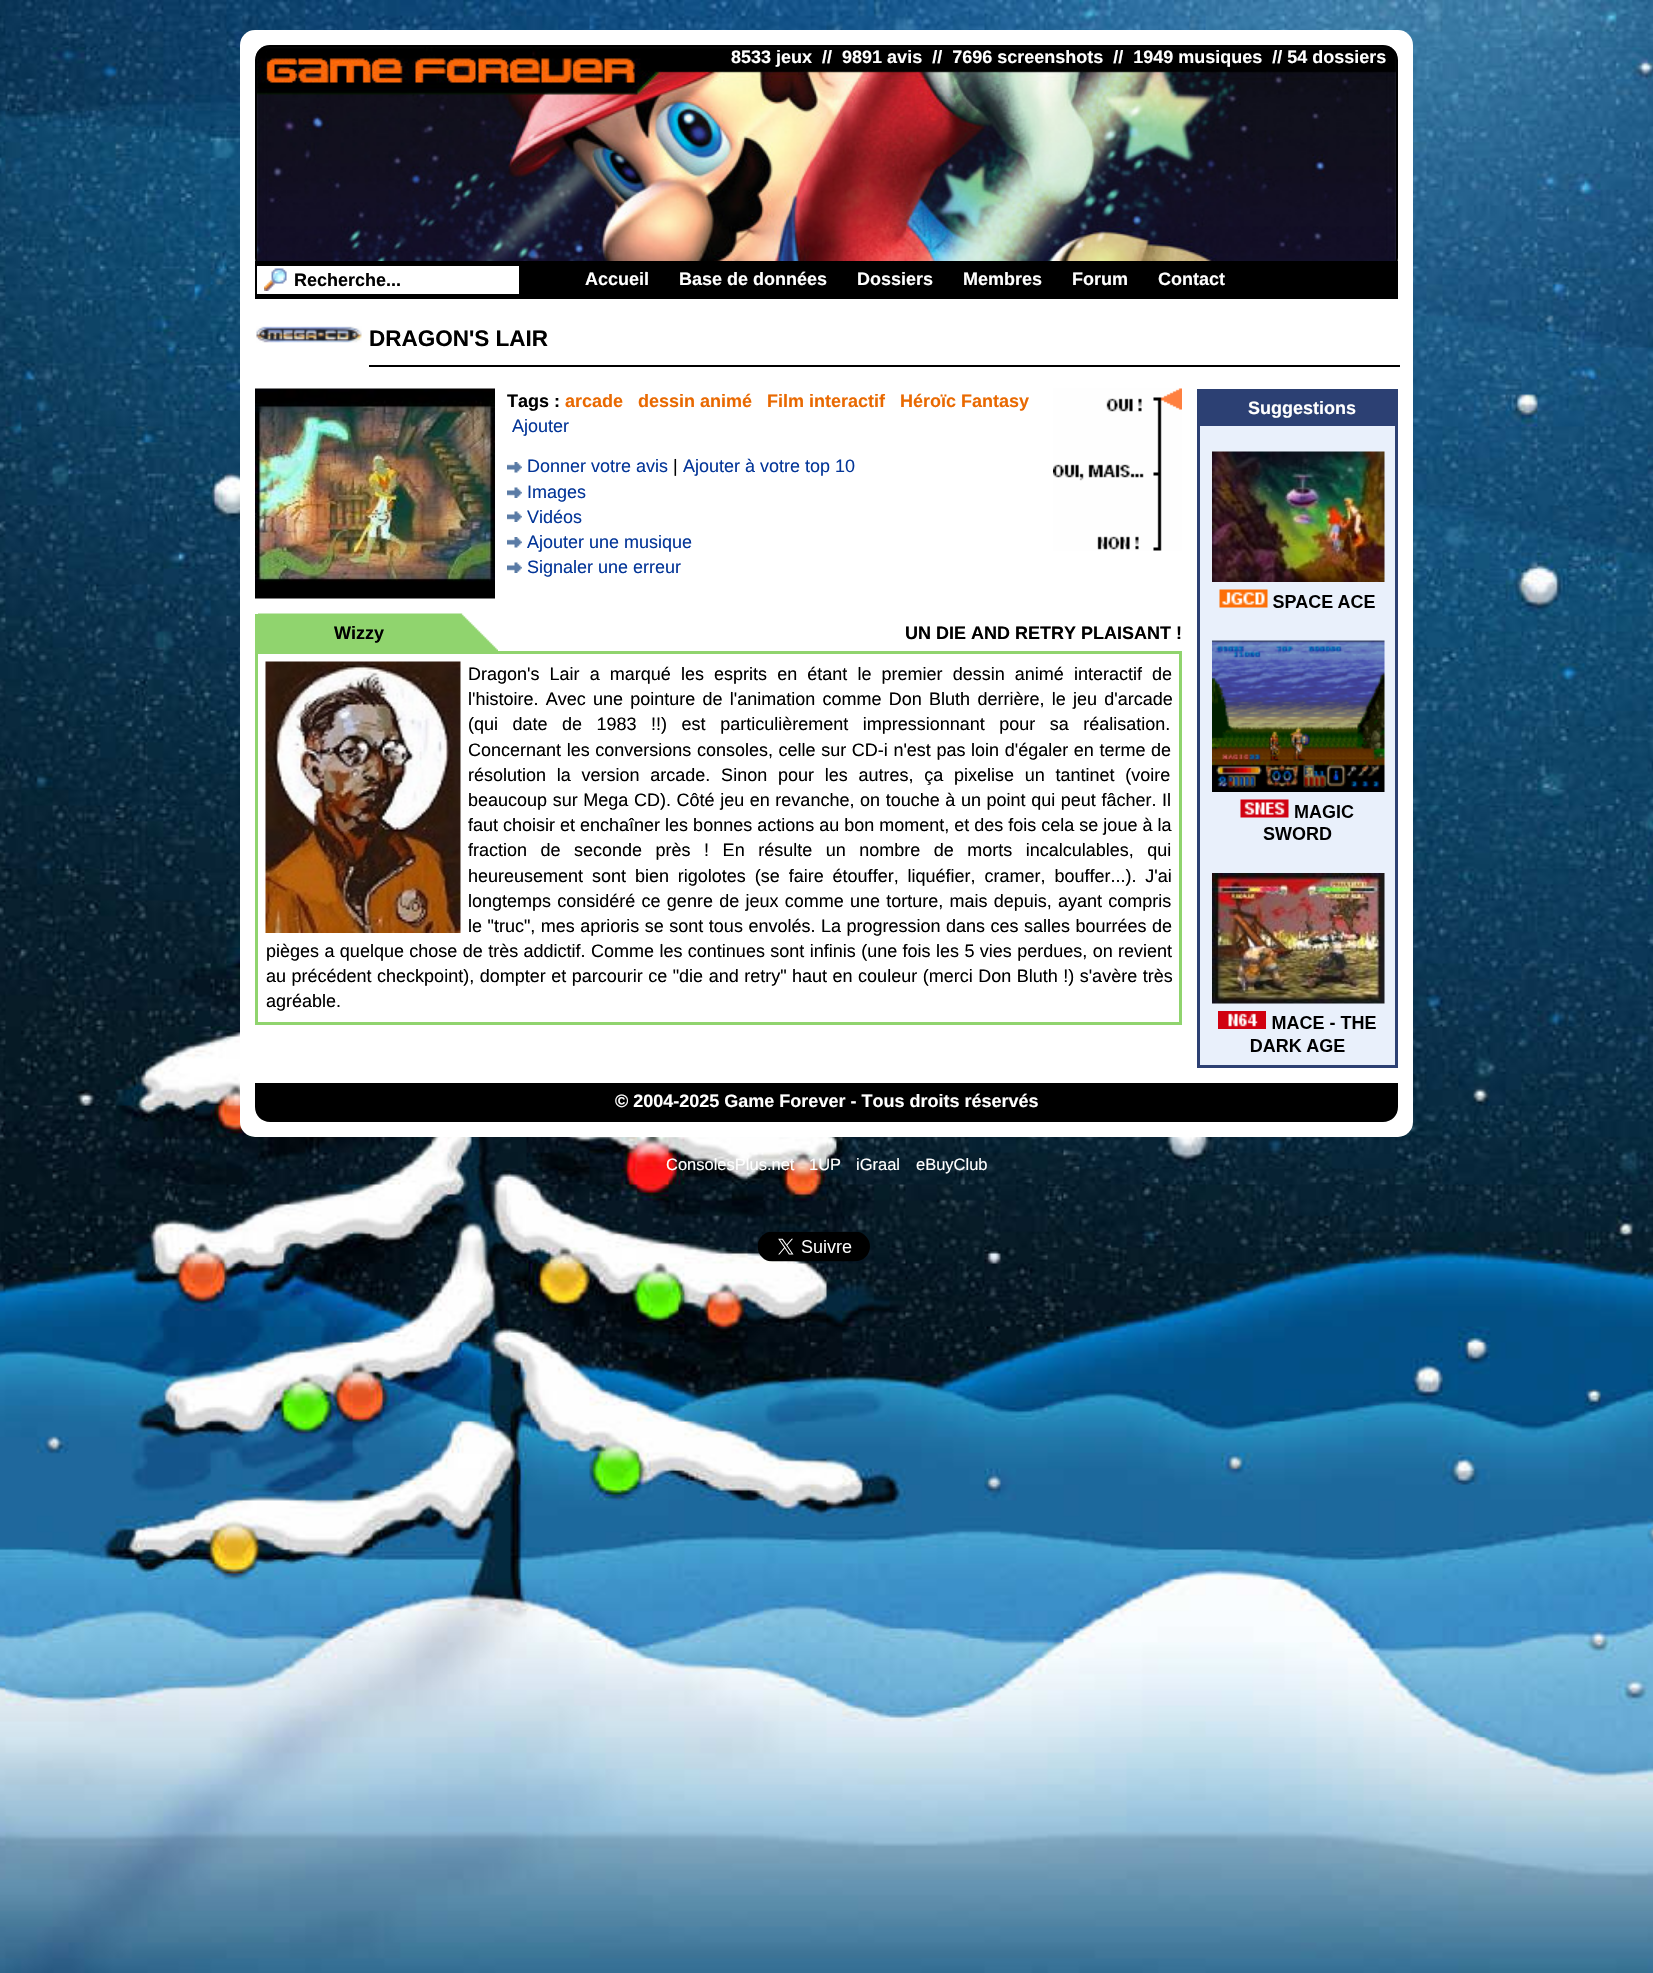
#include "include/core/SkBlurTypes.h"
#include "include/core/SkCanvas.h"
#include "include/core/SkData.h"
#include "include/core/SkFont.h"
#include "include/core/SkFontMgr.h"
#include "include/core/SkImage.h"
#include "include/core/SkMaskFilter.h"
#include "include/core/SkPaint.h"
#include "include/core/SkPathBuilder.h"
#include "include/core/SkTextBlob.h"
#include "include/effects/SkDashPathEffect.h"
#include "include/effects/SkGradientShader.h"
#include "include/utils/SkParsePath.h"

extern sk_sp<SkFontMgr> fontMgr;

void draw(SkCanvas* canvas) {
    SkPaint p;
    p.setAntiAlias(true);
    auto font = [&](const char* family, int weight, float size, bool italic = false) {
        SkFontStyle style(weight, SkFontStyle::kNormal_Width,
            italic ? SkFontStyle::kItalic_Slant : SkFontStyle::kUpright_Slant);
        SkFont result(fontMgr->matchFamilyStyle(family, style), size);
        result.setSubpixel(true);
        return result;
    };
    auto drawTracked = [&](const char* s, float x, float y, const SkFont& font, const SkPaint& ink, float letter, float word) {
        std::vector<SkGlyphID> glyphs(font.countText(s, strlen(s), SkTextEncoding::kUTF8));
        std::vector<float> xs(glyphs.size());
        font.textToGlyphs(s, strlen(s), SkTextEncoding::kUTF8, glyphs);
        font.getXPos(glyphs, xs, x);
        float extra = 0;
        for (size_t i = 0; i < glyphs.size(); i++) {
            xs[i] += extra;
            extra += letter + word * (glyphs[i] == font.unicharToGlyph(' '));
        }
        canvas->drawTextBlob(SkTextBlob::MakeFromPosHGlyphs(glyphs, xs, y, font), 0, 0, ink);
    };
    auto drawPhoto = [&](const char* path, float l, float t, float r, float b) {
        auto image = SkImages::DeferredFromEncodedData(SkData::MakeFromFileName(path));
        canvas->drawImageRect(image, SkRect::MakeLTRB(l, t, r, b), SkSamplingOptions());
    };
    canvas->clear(0xFFFFFFFF);
    drawPhoto("media/1.png", 0, 0, 1653, 1973);
    p.setColor(0xFFFFFFFF);
    canvas->drawRoundRect(SkRect::MakeLTRB(240, 30, 1413, 1137), 15, 15, p);
    drawPhoto("media/2.png", 256, 46, 1397, 261);
    p.setStyle(SkPaint::kStroke_Style);
    p.setStrokeWidth(2);
    p.setColor(0xFF000000);
    canvas->drawRoundRect(SkRect::MakeLTRB(256, 46, 1397, 272), 14, 14, p);
    auto font1 = font("Liberation Sans", 700, 18);
    p.setStyle(SkPaint::kFill_Style);
    p.setColor(0xFFFFFFFF);
    canvas->drawString("8533 jeux  //  9891 avis  //  7696 screenshots  //  1949 musiques  // 54 dossiers", 731, 63, font1, p);
    p.setStyle(SkPaint::kStroke_Style);
    p.setColor(0xFF000000);
    canvas->drawRect(SkRect::MakeLTRB(256, 262, 1397, 298), p);
    p.setStyle(SkPaint::kFill_Style);
    canvas->drawRect(SkRect::MakeLTRB(257, 263, 1396, 297), p);
    p.setColor(0xFFFFFFFF);
    canvas->drawRect(SkRect::MakeLTRB(257, 266, 519, 294), p);
    drawPhoto("media/3.png", 264, 268, 287, 291);
    p.setColor(0xFF000000);
    canvas->drawString("Recherche...", 294, 286, font1, p);
    p.setColor(0xFFFFFFFF);
    {
        const struct { const char* s; float x, y; } items[] = {
            {"Accueil", 585, 285},
            {"Base de données", 679, 285},
            {"Dossiers", 857, 285},
            {"Membres", 963, 285},
            {"Forum", 1072, 285},
            {"Contact", 1158, 285},
        };
        for (auto [s, x, y] : items) {
            canvas->drawString(s, x, y, font1, p);
        }
    }
    drawPhoto("media/4.png", 256, 326, 362, 343);
    auto font2 = font("Liberation Sans", 700, 22.5f);
    p.setColor(0xFF000000);
    canvas->drawString("DRAGON'S LAIR", 369, 346, font2, p);
    canvas->drawRect(SkRect::MakeLTRB(369, 365, 1400, 367), p);
    drawPhoto("media/5.png", 255, 388, 495, 599);
    canvas->drawString("Tags :", 507, 407, font1, p);
    p.setColor(0xFFE96901);
    {
        const struct { const char* s; float x, y; } items[] = {
            {"arcade", 565, 407},
            {"dessin animé", 638, 407},
            {"Film interactif", 767, 407},
            {"Héroïc Fantasy", 900, 407},
        };
        for (auto [s, x, y] : items) {
            canvas->drawString(s, x, y, font1, p);
        }
    }
    drawPhoto("media/6.png", 1053, 388, 1182, 551);
    auto font3 = font("Liberation Sans", 400, 18);
    p.setColor(0xFF043698);
    canvas->drawString("Ajouter", 512, 432, font3, p);
    drawPhoto("media/7.png", 507, 462, 522, 473);
    canvas->drawString("Donner votre avis", 527, 472, font3, p);
    p.setColor(0xFF000000);
    canvas->drawString("|", 673, 472, font3, p);
    p.setColor(0xFF043698);
    canvas->drawString("Ajouter à votre top 10", 683, 472, font3, p);
    drawPhoto("media/8.png", 507, 487, 522, 498);
    canvas->drawString("Images", 527, 498, font3, p);
    drawPhoto("media/8.png", 507, 511, 522, 522);
    canvas->drawString("Vidéos", 527, 523, font3, p);
    drawPhoto("media/7.png", 507, 537, 522, 548);
    canvas->drawString("Ajouter une musique", 527, 548, font3, p);
    drawPhoto("media/8.png", 507, 562, 522, 573);
    canvas->drawString("Signaler une erreur", 527, 573, font3, p);
    p.setColor(0xFFE9F0FB);
    canvas->drawRect(SkRect::MakeLTRB(1200, 426, 1395, 1065), p);
    p.setStyle(SkPaint::kStroke_Style);
    p.setStrokeWidth(3);
    p.setColor(0xFF2C4073);
    canvas->drawRect(SkRect::MakeLTRB(1198.5f, 390.5f, 1396.5f, 1066.5f), p);
    p.setStyle(SkPaint::kFill_Style);
    canvas->drawRect(SkRect::MakeLTRB(1200, 392, 1395, 426), p);
    p.setColor(0xFFFFFFFF);
    canvas->drawString("Suggestions", 1248, 414, font1, p);
    drawPhoto("media/9.png", 1212, 451, 1385, 1052);
    drawPhoto("media/10.png", 258, 613, 498, 651);
    p.setColor(0xFF90D46E);
    canvas->drawRect(SkRect::MakeLTRB(255, 614, 258, 651), p);
    p.setColor(0xFF000000);
    canvas->drawString("Wizzy", 334, 639, font1, p);
    canvas->drawString("UN DIE AND RETRY PLAISANT !", 905, 639, font1, p);
    p.setStyle(SkPaint::kStroke_Style);
    p.setColor(0xFF90D46E);
    canvas->drawRect(SkRect::MakeLTRB(256.5f, 652.5f, 1180.5f, 1023.5f), p);
    drawPhoto("media/11.png", 265, 661, 461, 933);
    p.setStyle(SkPaint::kFill_Style);
    p.setColor(0xFF000000);
    drawTracked("Dragon's Lair a marqué les esprits en étant le premier dessin animé interactif de", 468, 680, font3, p, 0, 5.1f);
    drawTracked("l'histoire. Avec une pointure de l'animation comme Don Bluth derrière, le jeu d'arcade", 468, 705, font3, p, 0, 2.25f);
    drawTracked("(qui date de 1983 !!) est particulièrement impressionnant pour sa réalisation.", 468, 730, font3, p, 0, 9.5f);
    drawTracked("Concernant les conversions consoles, celle sur CD-i n'est pas loin d'égaler en terme de", 468, 756, font3, p, 0, 0.6f);
    drawTracked("résolution la version arcade. Sinon pour les autres, ça pixelise un tantinet (voire", 468, 781, font3, p, 0, 5.75f);
    drawTracked("beaucoup sur Mega CD). Côté jeu en revanche, on touche à un point qui peut fâcher. Il", 468, 806, font3, p, 0, 0.6f);
    canvas->drawString("faut choisir et enchaîner les bonnes actions au bon moment, et des fois cela se joue à la", 468, 831, font3, p);
    drawTracked("fraction de seconde près ! En résulte un nombre de morts incalculables, qui", 468, 856, font3, p, 0, 8.5f);
    drawTracked("heureusement sont bien rigolotes (se faire étouffer, liquéfier, cramer, bouffer...). J'ai", 468, 882, font3, p, 0, 3.9f);
    drawTracked("longtemps considéré ce genre de jeux comme une torture, mais depuis, ayant compris", 468, 907, font3, p, 0, 1.25f);
    drawTracked("le \"truc\", mes aprioris se sont tous envolés. La progression dans ces salles bourrées de", 468, 932, font3, p, 0, 0.5f);
    drawTracked("pièges a quelque chose de très addictif. Comme les continues sont infinis (une fois les 5 vies perdues, on revient", 266, 957, font3, p, 0, 0.4f);
    drawTracked("au précédent checkpoint), dompter et parcourir ce \"die and retry\" haut en couleur (merci Don Bluth !) s'avère très", 266, 982, font3, p, 0, 0.5f);
    canvas->drawString("agréable.", 266, 1007, font3, p);
    canvas->drawPath(SkPathBuilder().moveTo(255, 1083).lineTo(1398, 1083).lineTo(1398, 1107).cubicTo(1398, 1115.5f, 1391.5f, 1122, 1383, 1122).lineTo(270, 1122).cubicTo(261.5f, 1122, 255, 1115.5f, 255, 1107).close().detach(), p);
    p.setColor(0xFFFFFFFF);
    canvas->drawString("© 2004-2025 Game Forever - Tous droits réservés", 615, 1107, font1, p);
    auto font4 = font("Liberation Sans", 400, 16.5f);
    {
        const struct { const char* s; float x, y; } items[] = {
            {"ConsolesPlus.net", 666, 1170},
            {"1UP", 809, 1170},
            {"iGraal", 856, 1170},
            {"eBuyClub", 916, 1170},
        };
        for (auto [s, x, y] : items) {
            canvas->drawString(s, x, y, font4, p);
        }
    }
    drawPhoto("media/12.png", 757, 1231, 870, 1262);
}
